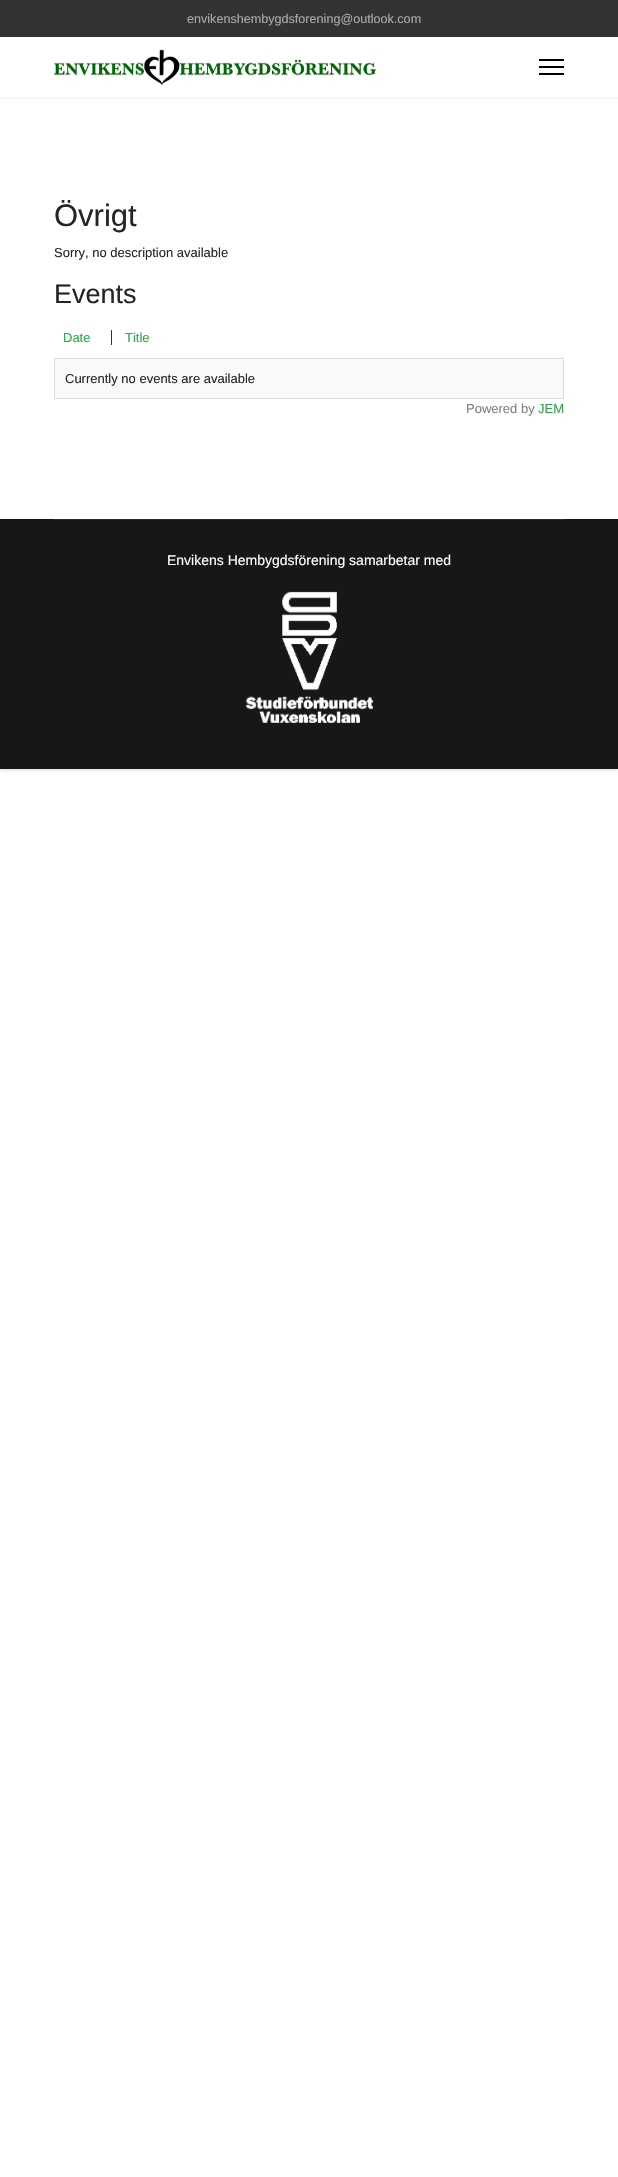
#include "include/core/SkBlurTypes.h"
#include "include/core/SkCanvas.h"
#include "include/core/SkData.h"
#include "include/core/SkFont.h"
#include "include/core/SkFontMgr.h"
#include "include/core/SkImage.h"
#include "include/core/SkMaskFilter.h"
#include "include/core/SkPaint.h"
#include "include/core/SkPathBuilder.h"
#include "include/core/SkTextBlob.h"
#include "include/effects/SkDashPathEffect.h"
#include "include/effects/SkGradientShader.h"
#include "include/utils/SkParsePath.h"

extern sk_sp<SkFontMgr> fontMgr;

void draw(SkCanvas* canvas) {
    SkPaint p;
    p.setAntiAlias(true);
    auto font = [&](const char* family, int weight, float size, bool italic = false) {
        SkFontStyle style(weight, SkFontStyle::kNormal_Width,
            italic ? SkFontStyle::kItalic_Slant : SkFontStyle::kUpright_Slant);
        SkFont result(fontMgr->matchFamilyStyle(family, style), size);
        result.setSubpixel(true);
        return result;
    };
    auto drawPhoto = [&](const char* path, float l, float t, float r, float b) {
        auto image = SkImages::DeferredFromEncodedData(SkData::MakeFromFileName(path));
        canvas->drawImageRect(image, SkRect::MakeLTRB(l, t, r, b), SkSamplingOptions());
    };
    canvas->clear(0xFFFFFFFF);
    canvas->save();
    canvas->clipRect(SkRect::MakeLTRB(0, 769, 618, 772));
    p.setColor(0x33000000);
    p.setMaskFilter(SkMaskFilter::MakeBlur(kNormal_SkBlurStyle, 2.5f));
    canvas->drawRect(SkRect::MakeLTRB(0, 0, 618, 769), p);
    p.setMaskFilter(nullptr);
    canvas->restore();
    p.setColor(0xFF333333);
    canvas->drawRect(SkRect::MakeLTRB(0, 0, 618, 37), p);
    auto font1 = font("Liberation Sans", 400, 12.6f);
    p.setColor(0xFFAAAAAA);
    canvas->drawString("envikenshembygdsforening@outlook.com", 187, 23, font1, p);
    canvas->save();
    canvas->clipPath(SkPathBuilder(SkPathFillType::kEvenOdd).moveTo(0, 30).lineTo(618, 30).lineTo(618, 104).lineTo(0, 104).close().moveTo(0, 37).lineTo(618, 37).lineTo(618, 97).lineTo(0, 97).close().detach(), true);
    p.setColor(0x1A000000);
    p.setMaskFilter(SkMaskFilter::MakeBlur(kNormal_SkBlurStyle, 2));
    canvas->drawRect(SkRect::MakeLTRB(0, 37, 618, 97), p);
    p.setMaskFilter(nullptr);
    canvas->restore();
    drawPhoto("media/1.png", 54, 49, 376, 85);
    {
        const struct { float l, t, r, b; SkColor color; } items[] = {
            {539, 59, 564, 61, 0xFF000000},
            {539, 66, 564, 68, 0xFF000000},
            {539, 73, 564, 75, 0xFF000000},
        };
        for (auto [l, t, r, b, color] : items) {
            p.setColor(color);
            canvas->drawRect(SkRect::MakeLTRB(l, t, r, b), p);
        }
    }
    auto font2 = font("Liberation Sans", 400, 31);
    p.setColor(0xFF252525);
    canvas->drawString("Övrigt", 54, 226, font2, p);
    auto font3 = font("Liberation Sans", 400, 13);
    canvas->drawString("Sorry, no description available", 54, 257, font3, p);
    auto font4 = font("Liberation Sans", 400, 27);
    canvas->drawString("Events", 54, 303, font4, p);
    p.setColor(0xFF2BA84A);
    canvas->drawString("Date", 63, 342, font3, p);
    auto font5 = font("FontAwesome", 400, 13);
    canvas->drawString("", 93, 342, font5, p);
    p.setColor(0xFF333333);
    canvas->drawRect(SkRect::MakeLTRB(111, 330, 112, 345), p);
    p.setColor(0xFF2BA84A);
    canvas->drawString("Title", 125, 342, font3, p);
    p.setColor(0xFFF9F9F9);
    canvas->drawRect(SkRect::MakeLTRB(54.5f, 358.5f, 563.5f, 398.5f), p);
    p.setStyle(SkPaint::kStroke_Style);
    p.setStrokeWidth(1);
    p.setColor(0xFFDDDDDD);
    canvas->drawRect(SkRect::MakeLTRB(54.5f, 358.5f, 563.5f, 398.5f), p);
    p.setStyle(SkPaint::kFill_Style);
    p.setColor(0xFF252525);
    canvas->drawString("Currently no events are available", 65, 383, font3, p);
    p.setColor(0xFF808080);
    canvas->drawString("Powered by", 466, 413, font3, p);
    p.setColor(0xFF2BA84A);
    canvas->drawString("JEM", 538, 413, font3, p);
    p.setColor(0xFF171717);
    canvas->drawRect(SkRect::MakeLTRB(0, 519, 618, 769), p);
    p.setColor(0xFF2E2E2E);
    canvas->drawRect(SkRect::MakeLTRB(54, 519, 564, 520), p);
    auto font6 = font("Liberation Sans", 400, 14);
    p.setColor(0xFFFFFFFF);
    canvas->drawString("Envikens Hembygdsförening samarbetar med", 167, 565, font6, p);
    drawPhoto("media/2.png", 245, 591, 373, 723);
}
